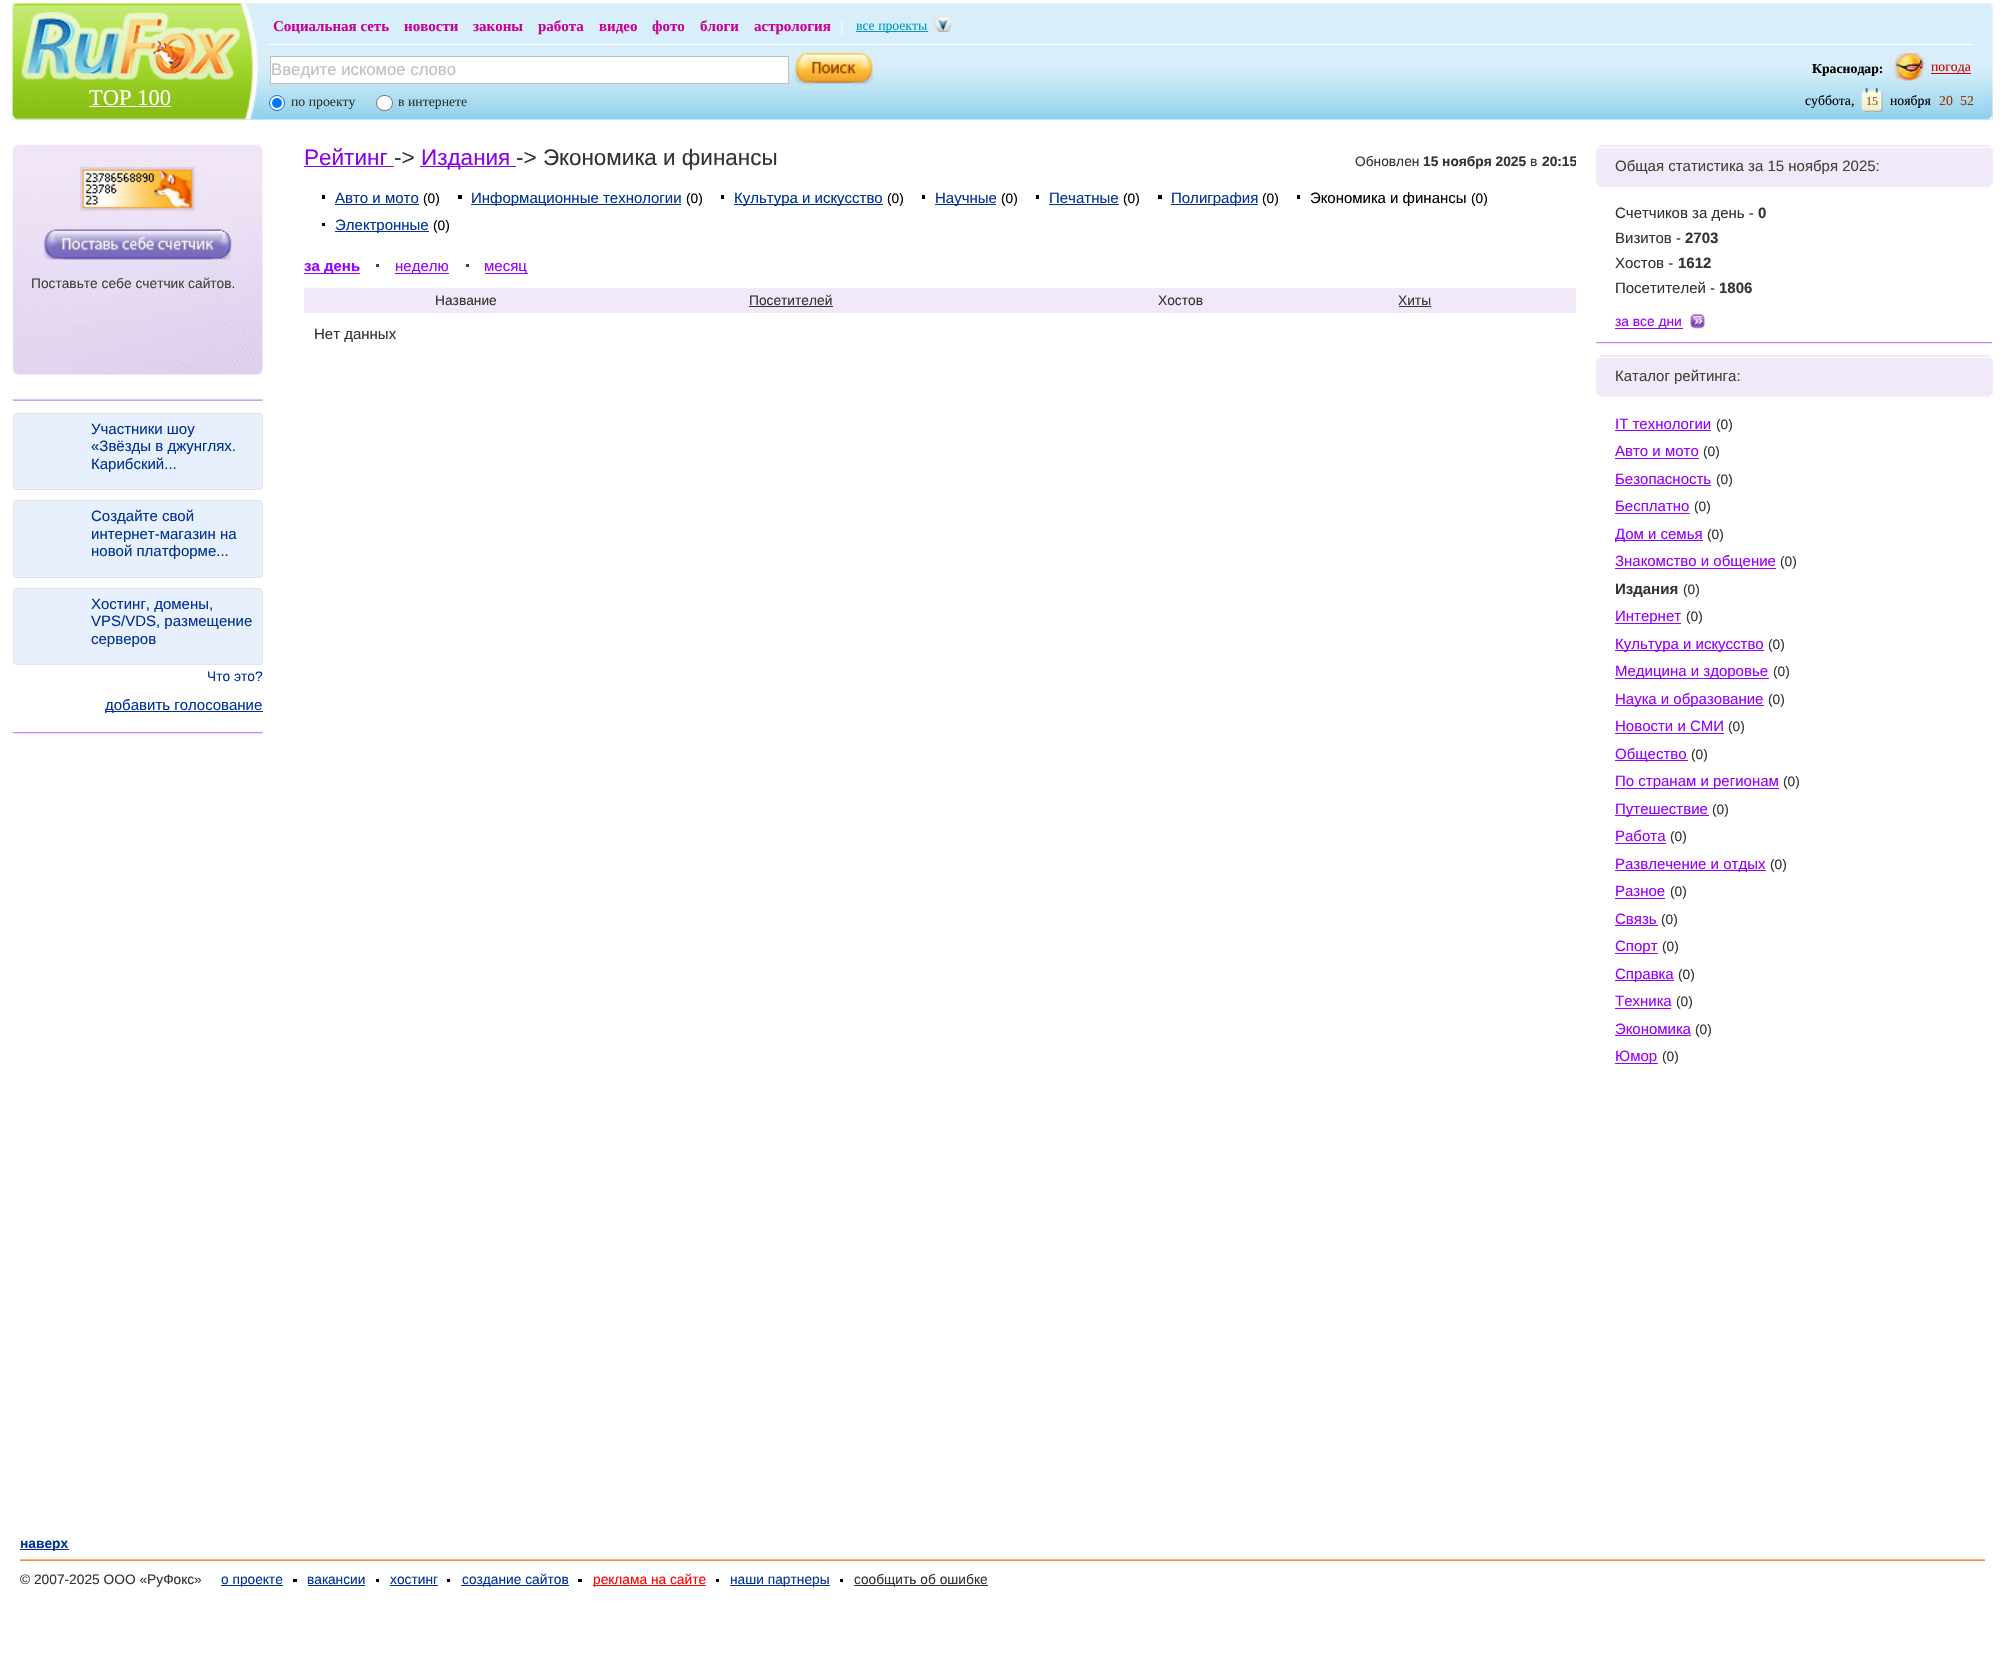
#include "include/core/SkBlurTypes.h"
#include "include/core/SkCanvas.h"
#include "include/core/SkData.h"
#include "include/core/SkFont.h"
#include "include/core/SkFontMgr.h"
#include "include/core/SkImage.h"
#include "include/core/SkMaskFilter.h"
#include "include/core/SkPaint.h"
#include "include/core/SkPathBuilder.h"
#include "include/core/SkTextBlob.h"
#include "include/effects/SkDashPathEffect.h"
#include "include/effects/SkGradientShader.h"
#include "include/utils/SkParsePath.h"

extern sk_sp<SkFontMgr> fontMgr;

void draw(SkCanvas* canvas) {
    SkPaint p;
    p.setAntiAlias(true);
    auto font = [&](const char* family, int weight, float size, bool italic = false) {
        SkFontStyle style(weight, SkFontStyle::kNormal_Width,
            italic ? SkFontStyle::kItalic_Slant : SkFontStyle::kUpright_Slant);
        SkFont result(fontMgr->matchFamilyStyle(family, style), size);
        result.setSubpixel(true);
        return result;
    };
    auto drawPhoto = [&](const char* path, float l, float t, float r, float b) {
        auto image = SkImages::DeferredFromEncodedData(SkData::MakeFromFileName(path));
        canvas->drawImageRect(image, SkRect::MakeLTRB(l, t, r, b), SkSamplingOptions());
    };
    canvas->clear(0xFFFFFFFF);
    drawPhoto("media/1.png", 12, 3, 1993, 120);
    drawPhoto("media/2.png", 12, 3, 259, 120);
    drawPhoto("media/3.png", 21, 12, 240, 80);
    auto font1 = font("Liberation Serif", 400, 22.5f);
    p.setColor(0xFFFFFFFF);
    canvas->drawString("TOP 100", 89, 105, font1, p);
    canvas->drawRect(SkRect::MakeLTRB(89, 106, 171, 107), p);
    canvas->drawRect(SkRect::MakeLTRB(268, 44, 1974, 45), p);
    auto font2 = font("Liberation Serif", 700, 15);
    p.setColor(0xFFCC0099);
    {
        const struct { const char* s; float x, y; } items[] = {
            {"Социальная сеть", 273, 31},
            {"новости", 404, 31},
            {"законы", 473, 31},
            {"работа", 538, 31},
            {"видео", 599, 31},
            {"фото", 652, 31},
            {"блоги", 700, 31},
            {"астрология", 754, 31},
        };
        for (auto [s, x, y] : items) {
            canvas->drawString(s, x, y, font2, p);
        }
    }
    drawPhoto("media/4.png", 841, 20, 843, 35);
    p.setColor(0xFF0099CC);
    canvas->drawRect(SkRect::MakeLTRB(856, 31, 928, 32), p);
    auto font3 = font("Liberation Serif", 400, 13.75f);
    canvas->drawString("все проекты", 856, 30, font3, p);
    drawPhoto("media/5.png", 933, 17, 953, 32);
    p.setColor(0xFFFFFFFF);
    canvas->drawRect(SkRect::MakeLTRB(270.5f, 56.5f, 788.5f, 83.5f), p);
    p.setStyle(SkPaint::kStroke_Style);
    p.setStrokeWidth(1);
    p.setColor(0xFFC0C0C0);
    canvas->drawRect(SkRect::MakeLTRB(270.5f, 56.5f, 788.5f, 83.5f), p);
    auto font4 = font("Liberation Sans", 400, 16.75f);
    p.setStyle(SkPaint::kFill_Style);
    canvas->drawString("Введите искомое слово", 271, 75, font4, p);
    drawPhoto("media/6.png", 794, 53, 874, 85);
    p.setColor(0xFFFFFFFF);
    canvas->drawCircle(277, 103, 7.5f, p);
    p.setStyle(SkPaint::kStroke_Style);
    p.setColor(0xFF0075FF);
    canvas->drawCircle(277, 103, 7.5f, p);
    p.setStyle(SkPaint::kFill_Style);
    canvas->drawCircle(277, 103, 5, p);
    p.setColor(0xFF333333);
    canvas->drawString("по проекту", 291, 106, font3, p);
    p.setColor(0xFFFFFFFF);
    canvas->drawRoundRect(SkRect::MakeLTRB(376.5f, 95.5f, 392.5f, 110.5f), 7.5f, 7.5f, p);
    p.setStyle(SkPaint::kStroke_Style);
    p.setColor(0xFF767676);
    canvas->drawRoundRect(SkRect::MakeLTRB(376.5f, 95.5f, 392.5f, 110.5f), 7.5f, 7.5f, p);
    p.setStyle(SkPaint::kFill_Style);
    p.setColor(0xFF333333);
    canvas->drawString("в интернете", 398, 106, font3, p);
    auto font5 = font("Liberation Serif", 700, 13.75f);
    p.setColor(0xFF000000);
    canvas->drawString("Краснодар:", 1812, 73, font5, p);
    drawPhoto("media/7.png", 1893, 53, 1926, 81);
    p.setColor(0xFFCC0000);
    canvas->drawRect(SkRect::MakeLTRB(1931, 73, 1971, 74), p);
    canvas->drawString("погода", 1931, 71, font3, p);
    p.setColor(0xFF000000);
    canvas->drawString("суббота,", 1805, 105, font3, p);
    drawPhoto("media/8.png", 1861, 88, 1883, 112);
    auto font6 = font("Liberation Serif", 400, 12);
    p.setColor(0xFFA64607);
    canvas->drawString("15", 1866, 105, font6, p);
    p.setColor(0xFF000000);
    canvas->drawString("ноября", 1890, 105, font3, p);
    p.setColor(0xFF993300);
    canvas->drawString("20", 1939, 105, font3, p);
    canvas->drawString("52", 1960, 105, font3, p);
    drawPhoto("media/9.png", 1986, 3, 1993, 120);
    drawPhoto("media/10.png", 12, 144, 263, 375);
    drawPhoto("media/11.png", 43, 229, 232, 260);
    auto font7 = font("Liberation Sans", 400, 13.75f);
    p.setColor(0xFF40433A);
    canvas->drawString("Поставьте себе счетчик сайтов.", 31, 288, font7, p);
    drawPhoto("media/12.png", 12, 399, 263, 401);
    p.setColor(0xFFE8EFFD);
    canvas->drawRoundRect(SkRect::MakeLTRB(13.5f, 413.5f, 262.5f, 489.5f), 3.5f, 3.5f, p);
    p.setStyle(SkPaint::kStroke_Style);
    p.setColor(0xFFDFE3E8);
    canvas->drawRoundRect(SkRect::MakeLTRB(13.5f, 413.5f, 262.5f, 489.5f), 3.5f, 3.5f, p);
    auto font8 = font("Liberation Sans", 400, 15);
    p.setStyle(SkPaint::kFill_Style);
    p.setColor(0xFF003399);
    {
        const struct { const char* s; float x, y; } items[] = {
            {"Участники шоу", 91, 434},
            {"«Звёзды в джунглях.", 91, 451},
            {"Карибский...", 91, 469},
        };
        for (auto [s, x, y] : items) {
            canvas->drawString(s, x, y, font8, p);
        }
    }
    p.setColor(0xFFE8EFFD);
    canvas->drawRoundRect(SkRect::MakeLTRB(13.5f, 500.5f, 262.5f, 577.5f), 3.5f, 3.5f, p);
    p.setStyle(SkPaint::kStroke_Style);
    p.setColor(0xFFDFE3E8);
    canvas->drawRoundRect(SkRect::MakeLTRB(13.5f, 500.5f, 262.5f, 577.5f), 3.5f, 3.5f, p);
    p.setStyle(SkPaint::kFill_Style);
    p.setColor(0xFF003399);
    {
        const struct { const char* s; float x, y; } items[] = {
            {"Создайте свой", 91, 521},
            {"интернет-магазин на", 91, 539},
            {"новой платформе...", 91, 556},
        };
        for (auto [s, x, y] : items) {
            canvas->drawString(s, x, y, font8, p);
        }
    }
    p.setColor(0xFFE8EFFD);
    canvas->drawRoundRect(SkRect::MakeLTRB(13.5f, 588.5f, 262.5f, 664.5f), 3.5f, 3.5f, p);
    p.setStyle(SkPaint::kStroke_Style);
    p.setColor(0xFFDFE3E8);
    canvas->drawRoundRect(SkRect::MakeLTRB(13.5f, 588.5f, 262.5f, 664.5f), 3.5f, 3.5f, p);
    p.setStyle(SkPaint::kFill_Style);
    p.setColor(0xFF003399);
    {
        const struct { const char* s; float x, y; } items[] = {
            {"Хостинг, домены,", 91, 609},
            {"VPS/VDS, размещение", 91, 626},
            {"серверов", 91, 644},
        };
        for (auto [s, x, y] : items) {
            canvas->drawString(s, x, y, font8, p);
        }
    }
    canvas->drawString("Что это?", 207, 681, font7, p);
    canvas->drawRect(SkRect::MakeLTRB(105, 711, 263, 712), p);
    canvas->drawString("добавить голосование", 105, 710, font8, p);
    drawPhoto("media/13.png", 12, 732, 263, 734);
    auto font9 = font("Liberation Sans", 400, 22.5f);
    p.setColor(0xFF8D02E9);
    canvas->drawString("Рейтинг", 304, 165, font9, p);
    canvas->drawRect(SkRect::MakeLTRB(304, 166, 394, 167), p);
    p.setColor(0xFF333333);
    canvas->drawString("->", 394, 165, font9, p);
    p.setColor(0xFF8D02E9);
    canvas->drawRect(SkRect::MakeLTRB(420, 166, 516, 167), p);
    canvas->drawString("Издания", 421, 165, font9, p);
    p.setColor(0xFF333333);
    canvas->drawString("-> Экономика и финансы", 516, 165, font9, p);
    canvas->drawString("Обновлен", 1355, 166, font7, p);
    auto font10 = font("Liberation Sans", 700, 13.75f);
    canvas->drawString("15 ноября 2025", 1423, 166, font10, p);
    canvas->drawString("в", 1530, 166, font7, p);
    canvas->save();
    canvas->clipRect(SkRect::MakeLTRB(281, 145, 1576, 363));
    canvas->drawString("20:15", 1542, 166, font10, p);
    canvas->restore();
    p.setColor(0xFF000000);
    canvas->drawRect(SkRect::MakeLTRB(322, 195, 325, 199), p);
    p.setColor(0xFF003399);
    canvas->drawString("Авто и мото", 335, 203, font8, p);
    canvas->drawRect(SkRect::MakeLTRB(335, 204, 419, 205), p);
    p.setColor(0xFF000000);
    canvas->drawString("(0)", 423, 203, font7, p);
    canvas->drawRect(SkRect::MakeLTRB(458, 195, 462, 199), p);
    p.setColor(0xFF003399);
    canvas->drawRect(SkRect::MakeLTRB(471, 204, 681, 205), p);
    canvas->drawString("Информационные технологии", 471, 203, font8, p);
    p.setColor(0xFF000000);
    canvas->drawString("(0)", 686, 203, font7, p);
    canvas->drawRect(SkRect::MakeLTRB(721, 195, 724, 199), p);
    p.setColor(0xFF003399);
    canvas->drawRect(SkRect::MakeLTRB(734, 204, 883, 205), p);
    canvas->drawString("Культура и искусство", 734, 203, font8, p);
    p.setColor(0xFF000000);
    canvas->drawString("(0)", 887, 203, font7, p);
    canvas->drawRect(SkRect::MakeLTRB(922, 195, 925, 199), p);
    p.setColor(0xFF003399);
    canvas->drawRect(SkRect::MakeLTRB(935, 204, 996, 205), p);
    canvas->drawString("Научные", 935, 203, font8, p);
    p.setColor(0xFF000000);
    canvas->drawString("(0)", 1001, 203, font7, p);
    canvas->drawRect(SkRect::MakeLTRB(1036, 195, 1039, 199), p);
    p.setColor(0xFF003399);
    canvas->drawString("Печатные", 1049, 203, font8, p);
    canvas->drawRect(SkRect::MakeLTRB(1049, 204, 1119, 205), p);
    p.setColor(0xFF000000);
    canvas->drawString("(0)", 1123, 203, font7, p);
    canvas->drawRect(SkRect::MakeLTRB(1158, 195, 1162, 199), p);
    p.setColor(0xFF003399);
    canvas->drawRect(SkRect::MakeLTRB(1171, 204, 1258, 205), p);
    canvas->drawString("Полиграфия", 1171, 203, font8, p);
    p.setColor(0xFF000000);
    canvas->drawString("(0)", 1262, 203, font7, p);
    canvas->drawRect(SkRect::MakeLTRB(1297, 195, 1300, 199), p);
    canvas->drawString("Экономика и финансы", 1310, 203, font8, p);
    canvas->drawString("(0)", 1471, 203, font7, p);
    canvas->drawRect(SkRect::MakeLTRB(322, 223, 325, 226), p);
    p.setColor(0xFF003399);
    canvas->drawRect(SkRect::MakeLTRB(335, 231, 429, 232), p);
    canvas->drawString("Электронные", 335, 230, font8, p);
    p.setColor(0xFF000000);
    canvas->drawString("(0)", 433, 230, font7, p);
    p.setColor(0xFF9900FF);
    canvas->drawRect(SkRect::MakeLTRB(304, 273, 360, 274), p);
    auto font11 = font("Liberation Sans", 700, 15);
    canvas->drawString("за день", 304, 271, font11, p);
    canvas->drawRect(SkRect::MakeLTRB(395, 273, 449, 274), p);
    canvas->drawString("неделю", 395, 271, font8, p);
    p.setColor(0xFF40433A);
    canvas->drawRect(SkRect::MakeLTRB(376, 264, 379, 267), p);
    p.setColor(0xFF9900FF);
    canvas->drawRect(SkRect::MakeLTRB(485, 273, 528, 274), p);
    canvas->drawString("месяц", 484, 271, font8, p);
    p.setColor(0xFF40433A);
    canvas->drawRect(SkRect::MakeLTRB(466, 264, 469, 267), p);
    p.setColor(0xFFF1E8F9);
    canvas->drawRect(SkRect::MakeLTRB(304, 288, 1576, 313), p);
    p.setColor(0xFF333333);
    canvas->drawString("Название", 435, 305, font7, p);
    canvas->drawString("Посетителей", 749, 305, font7, p);
    canvas->drawRect(SkRect::MakeLTRB(749, 306, 833, 307), p);
    canvas->drawString("Хостов", 1158, 305, font7, p);
    canvas->drawString("Хиты", 1398, 305, font7, p);
    canvas->drawRect(SkRect::MakeLTRB(1399, 306, 1431, 307), p);
    canvas->drawString("Нет данных", 314, 339, font8, p);
    {
        const struct { float l, t, r, b; SkColor color; } items[] = {
            {1600, 145, 1989, 146, 0xFFF1E8F9},
            {1599, 146, 1990, 147, 0xFFF1E8F9},
            {1598, 148, 1991, 149, 0xFFF1E8F9},
            {1596, 149, 1993, 184, 0xFFF1E8F9},
        };
        for (auto [l, t, r, b, color] : items) {
            p.setColor(color);
            canvas->drawRect(SkRect::MakeLTRB(l, t, r, b), p);
        }
    }
    p.setColor(0xFF40433A);
    canvas->drawString("Общая статистика за 15 ноября 2025:", 1615, 171, font8, p);
    {
        const struct { float l, t, r, b; SkColor color; } items[] = {
            {1598, 184, 1991, 185, 0xFFF1E8F9},
            {1599, 185, 1990, 186, 0xFFF1E8F9},
            {1600, 186, 1989, 187, 0xFFF1E8F9},
        };
        for (auto [l, t, r, b, color] : items) {
            p.setColor(color);
            canvas->drawRect(SkRect::MakeLTRB(l, t, r, b), p);
        }
    }
    p.setColor(0xFF333333);
    canvas->drawString("Счетчиков за день -", 1615, 218, font8, p);
    canvas->drawString("0", 1758, 218, font11, p);
    canvas->drawString("Визитов -", 1615, 243, font8, p);
    canvas->drawString("2703", 1685, 243, font11, p);
    canvas->drawString("Хостов -", 1615, 268, font8, p);
    canvas->drawString("1612", 1678, 268, font11, p);
    canvas->drawString("Посетителей -", 1615, 293, font8, p);
    canvas->drawString("1806", 1719, 293, font11, p);
    p.setColor(0xFF9900FF);
    canvas->drawRect(SkRect::MakeLTRB(1615, 328, 1683, 329), p);
    canvas->drawString("за все дни", 1615, 326, font7, p);
    drawPhoto("media/14.png", 1690, 314, 1705, 329);
    drawPhoto("media/15.png", 1596, 342, 1993, 344);
    {
        const struct { float l, t, r, b; SkColor color; } items[] = {
            {1600, 355, 1989, 356, 0xFFF1E8F9},
            {1599, 356, 1990, 357, 0xFFF1E8F9},
            {1598, 358, 1991, 359, 0xFFF1E8F9},
            {1596, 359, 1993, 394, 0xFFF1E8F9},
        };
        for (auto [l, t, r, b, color] : items) {
            p.setColor(color);
            canvas->drawRect(SkRect::MakeLTRB(l, t, r, b), p);
        }
    }
    p.setColor(0xFF40433A);
    canvas->drawString("Каталог рейтинга:", 1615, 381, font8, p);
    {
        const struct { float l, t, r, b; SkColor color; } items[] = {
            {1598, 394, 1991, 395, 0xFFF1E8F9},
            {1599, 395, 1990, 396, 0xFFF1E8F9},
            {1600, 396, 1989, 397, 0xFFF1E8F9},
        };
        for (auto [l, t, r, b, color] : items) {
            p.setColor(color);
            canvas->drawRect(SkRect::MakeLTRB(l, t, r, b), p);
        }
    }
    p.setColor(0xFF9900FF);
    canvas->drawString("IT технологии", 1615, 429, font8, p);
    canvas->drawRect(SkRect::MakeLTRB(1615, 430, 1711, 431), p);
    p.setColor(0xFF333333);
    canvas->drawString("(0)", 1716, 429, font7, p);
    p.setColor(0xFF9900FF);
    canvas->drawString("Авто и мото", 1615, 456, font8, p);
    canvas->drawRect(SkRect::MakeLTRB(1615, 458, 1699, 459), p);
    p.setColor(0xFF333333);
    canvas->drawString("(0)", 1703, 456, font7, p);
    p.setColor(0xFF9900FF);
    canvas->drawString("Безопасность", 1615, 484, font8, p);
    canvas->drawRect(SkRect::MakeLTRB(1615, 485, 1711, 486), p);
    p.setColor(0xFF333333);
    canvas->drawString("(0)", 1716, 484, font7, p);
    p.setColor(0xFF9900FF);
    canvas->drawString("Бесплатно", 1615, 511, font8, p);
    canvas->drawRect(SkRect::MakeLTRB(1615, 513, 1690, 514), p);
    p.setColor(0xFF333333);
    canvas->drawString("(0)", 1694, 511, font7, p);
    p.setColor(0xFF9900FF);
    canvas->drawRect(SkRect::MakeLTRB(1615, 540, 1703, 541), p);
    canvas->drawString("Дом и семья", 1615, 539, font8, p);
    p.setColor(0xFF333333);
    canvas->drawString("(0)", 1707, 539, font7, p);
    p.setColor(0xFF9900FF);
    canvas->drawRect(SkRect::MakeLTRB(1615, 568, 1776, 569), p);
    canvas->drawString("Знакомство и общение", 1615, 566, font8, p);
    p.setColor(0xFF333333);
    canvas->drawString("(0)", 1780, 566, font7, p);
    canvas->drawString("Издания", 1615, 594, font11, p);
    canvas->drawString("(0)", 1683, 594, font7, p);
    p.setColor(0xFF9900FF);
    canvas->drawRect(SkRect::MakeLTRB(1615, 623, 1681, 624), p);
    canvas->drawString("Интернет", 1615, 621, font8, p);
    p.setColor(0xFF333333);
    canvas->drawString("(0)", 1686, 621, font7, p);
    p.setColor(0xFF9900FF);
    canvas->drawRect(SkRect::MakeLTRB(1615, 650, 1764, 651), p);
    canvas->drawString("Культура и искусство", 1615, 649, font8, p);
    p.setColor(0xFF333333);
    canvas->drawString("(0)", 1768, 649, font7, p);
    p.setColor(0xFF9900FF);
    canvas->drawRect(SkRect::MakeLTRB(1615, 678, 1769, 679), p);
    canvas->drawString("Медицина и здоровье", 1615, 676, font8, p);
    p.setColor(0xFF333333);
    canvas->drawString("(0)", 1773, 676, font7, p);
    p.setColor(0xFF9900FF);
    canvas->drawRect(SkRect::MakeLTRB(1615, 705, 1764, 706), p);
    canvas->drawString("Наука и образование", 1615, 704, font8, p);
    p.setColor(0xFF333333);
    canvas->drawString("(0)", 1768, 704, font7, p);
    p.setColor(0xFF9900FF);
    canvas->drawString("Новости и СМИ", 1615, 731, font8, p);
    canvas->drawRect(SkRect::MakeLTRB(1615, 733, 1724, 734), p);
    p.setColor(0xFF333333);
    canvas->drawString("(0)", 1728, 731, font7, p);
    p.setColor(0xFF9900FF);
    canvas->drawRect(SkRect::MakeLTRB(1615, 760, 1688, 761), p);
    canvas->drawString("Общество", 1615, 759, font8, p);
    p.setColor(0xFF333333);
    canvas->drawString("(0)", 1691, 759, font7, p);
    p.setColor(0xFF9900FF);
    canvas->drawRect(SkRect::MakeLTRB(1615, 788, 1779, 789), p);
    canvas->drawString("По странам и регионам", 1615, 786, font8, p);
    p.setColor(0xFF333333);
    canvas->drawString("(0)", 1783, 786, font7, p);
    p.setColor(0xFF9900FF);
    canvas->drawRect(SkRect::MakeLTRB(1615, 815, 1709, 816), p);
    canvas->drawString("Путешествие", 1615, 814, font8, p);
    p.setColor(0xFF333333);
    canvas->drawString("(0)", 1712, 814, font7, p);
    p.setColor(0xFF9900FF);
    canvas->drawString("Работа", 1615, 841, font8, p);
    canvas->drawRect(SkRect::MakeLTRB(1615, 843, 1666, 844), p);
    p.setColor(0xFF333333);
    canvas->drawString("(0)", 1670, 841, font7, p);
    p.setColor(0xFF9900FF);
    canvas->drawRect(SkRect::MakeLTRB(1615, 870, 1766, 871), p);
    canvas->drawString("Развлечение и отдых", 1615, 869, font8, p);
    p.setColor(0xFF333333);
    canvas->drawString("(0)", 1770, 869, font7, p);
    p.setColor(0xFF9900FF);
    canvas->drawString("Разное", 1615, 896, font8, p);
    canvas->drawRect(SkRect::MakeLTRB(1615, 898, 1665, 899), p);
    p.setColor(0xFF333333);
    canvas->drawString("(0)", 1670, 896, font7, p);
    p.setColor(0xFF9900FF);
    canvas->drawString("Связь", 1615, 924, font8, p);
    canvas->drawRect(SkRect::MakeLTRB(1615, 925, 1658, 926), p);
    p.setColor(0xFF333333);
    canvas->drawString("(0)", 1661, 924, font7, p);
    p.setColor(0xFF9900FF);
    canvas->drawRect(SkRect::MakeLTRB(1615, 953, 1658, 954), p);
    canvas->drawString("Спорт", 1615, 951, font8, p);
    p.setColor(0xFF333333);
    canvas->drawString("(0)", 1662, 951, font7, p);
    p.setColor(0xFF9900FF);
    canvas->drawRect(SkRect::MakeLTRB(1615, 980, 1674, 981), p);
    canvas->drawString("Справка", 1615, 979, font8, p);
    p.setColor(0xFF333333);
    canvas->drawString("(0)", 1678, 979, font7, p);
    p.setColor(0xFF9900FF);
    canvas->drawString("Техника", 1615, 1006, font8, p);
    canvas->drawRect(SkRect::MakeLTRB(1615, 1008, 1671, 1009), p);
    p.setColor(0xFF333333);
    canvas->drawString("(0)", 1676, 1006, font7, p);
    p.setColor(0xFF9900FF);
    canvas->drawString("Экономика", 1615, 1034, font8, p);
    canvas->drawRect(SkRect::MakeLTRB(1615, 1035, 1691, 1036), p);
    p.setColor(0xFF333333);
    canvas->drawString("(0)", 1695, 1034, font7, p);
    p.setColor(0xFF9900FF);
    canvas->drawRect(SkRect::MakeLTRB(1615, 1063, 1658, 1064), p);
    canvas->drawString("Юмор", 1615, 1061, font8, p);
    p.setColor(0xFF333333);
    canvas->drawString("(0)", 1662, 1061, font7, p);
    p.setColor(0xFF003399);
    canvas->drawRect(SkRect::MakeLTRB(20, 1549, 69, 1550), p);
    canvas->drawString("наверх", 20, 1548, font10, p);
    drawPhoto("media/16.png", 20, 1559, 1985, 1561);
    p.setColor(0xFF333333);
    canvas->drawString("© 2007-2025 ООО «РуФокс»", 20, 1584, font7, p);
    p.setColor(0xFF003399);
    canvas->drawRect(SkRect::MakeLTRB(221, 1585, 283, 1586), p);
    canvas->drawString("о проекте", 221, 1584, font7, p);
    canvas->drawString("вакансии", 307, 1584, font7, p);
    p.setColor(0xFF010101);
    canvas->drawRect(SkRect::MakeLTRB(293, 1579, 297, 1582), p);
    p.setColor(0xFF003399);
    canvas->drawRect(SkRect::MakeLTRB(308, 1585, 365, 1586), p);
    canvas->drawString("хостинг", 390, 1584, font7, p);
    {
        const struct { float l, t, r, b; SkColor color; } items[] = {
            {376, 1579, 379, 1582, 0xFF000000},
            {390, 1585, 438, 1586, 0xFF003399},
            {461, 1585, 569, 1586, 0xFF003399},
        };
        for (auto [l, t, r, b, color] : items) {
            p.setColor(color);
            canvas->drawRect(SkRect::MakeLTRB(l, t, r, b), p);
        }
    }
    canvas->drawString("создание сайтов", 462, 1584, font7, p);
    p.setColor(0xFF000000);
    canvas->drawRect(SkRect::MakeLTRB(447, 1579, 450, 1582), p);
    p.setColor(0xFFFF0000);
    canvas->drawRect(SkRect::MakeLTRB(593, 1585, 706, 1586), p);
    canvas->drawString("реклама на сайте", 593, 1584, font7, p);
    p.setColor(0xFF010101);
    canvas->drawRect(SkRect::MakeLTRB(578, 1579, 582, 1582), p);
    p.setColor(0xFF003399);
    canvas->drawRect(SkRect::MakeLTRB(730, 1585, 830, 1586), p);
    canvas->drawString("наши партнеры", 730, 1584, font7, p);
    p.setColor(0xFF000000);
    canvas->drawRect(SkRect::MakeLTRB(716, 1579, 719, 1582), p);
    p.setColor(0xFF333333);
    canvas->drawRect(SkRect::MakeLTRB(854, 1585, 988, 1586), p);
    canvas->drawString("сообщить об ошибке", 854, 1584, font7, p);
    p.setColor(0xFF000000);
    canvas->drawRect(SkRect::MakeLTRB(840, 1579, 843, 1582), p);
}
